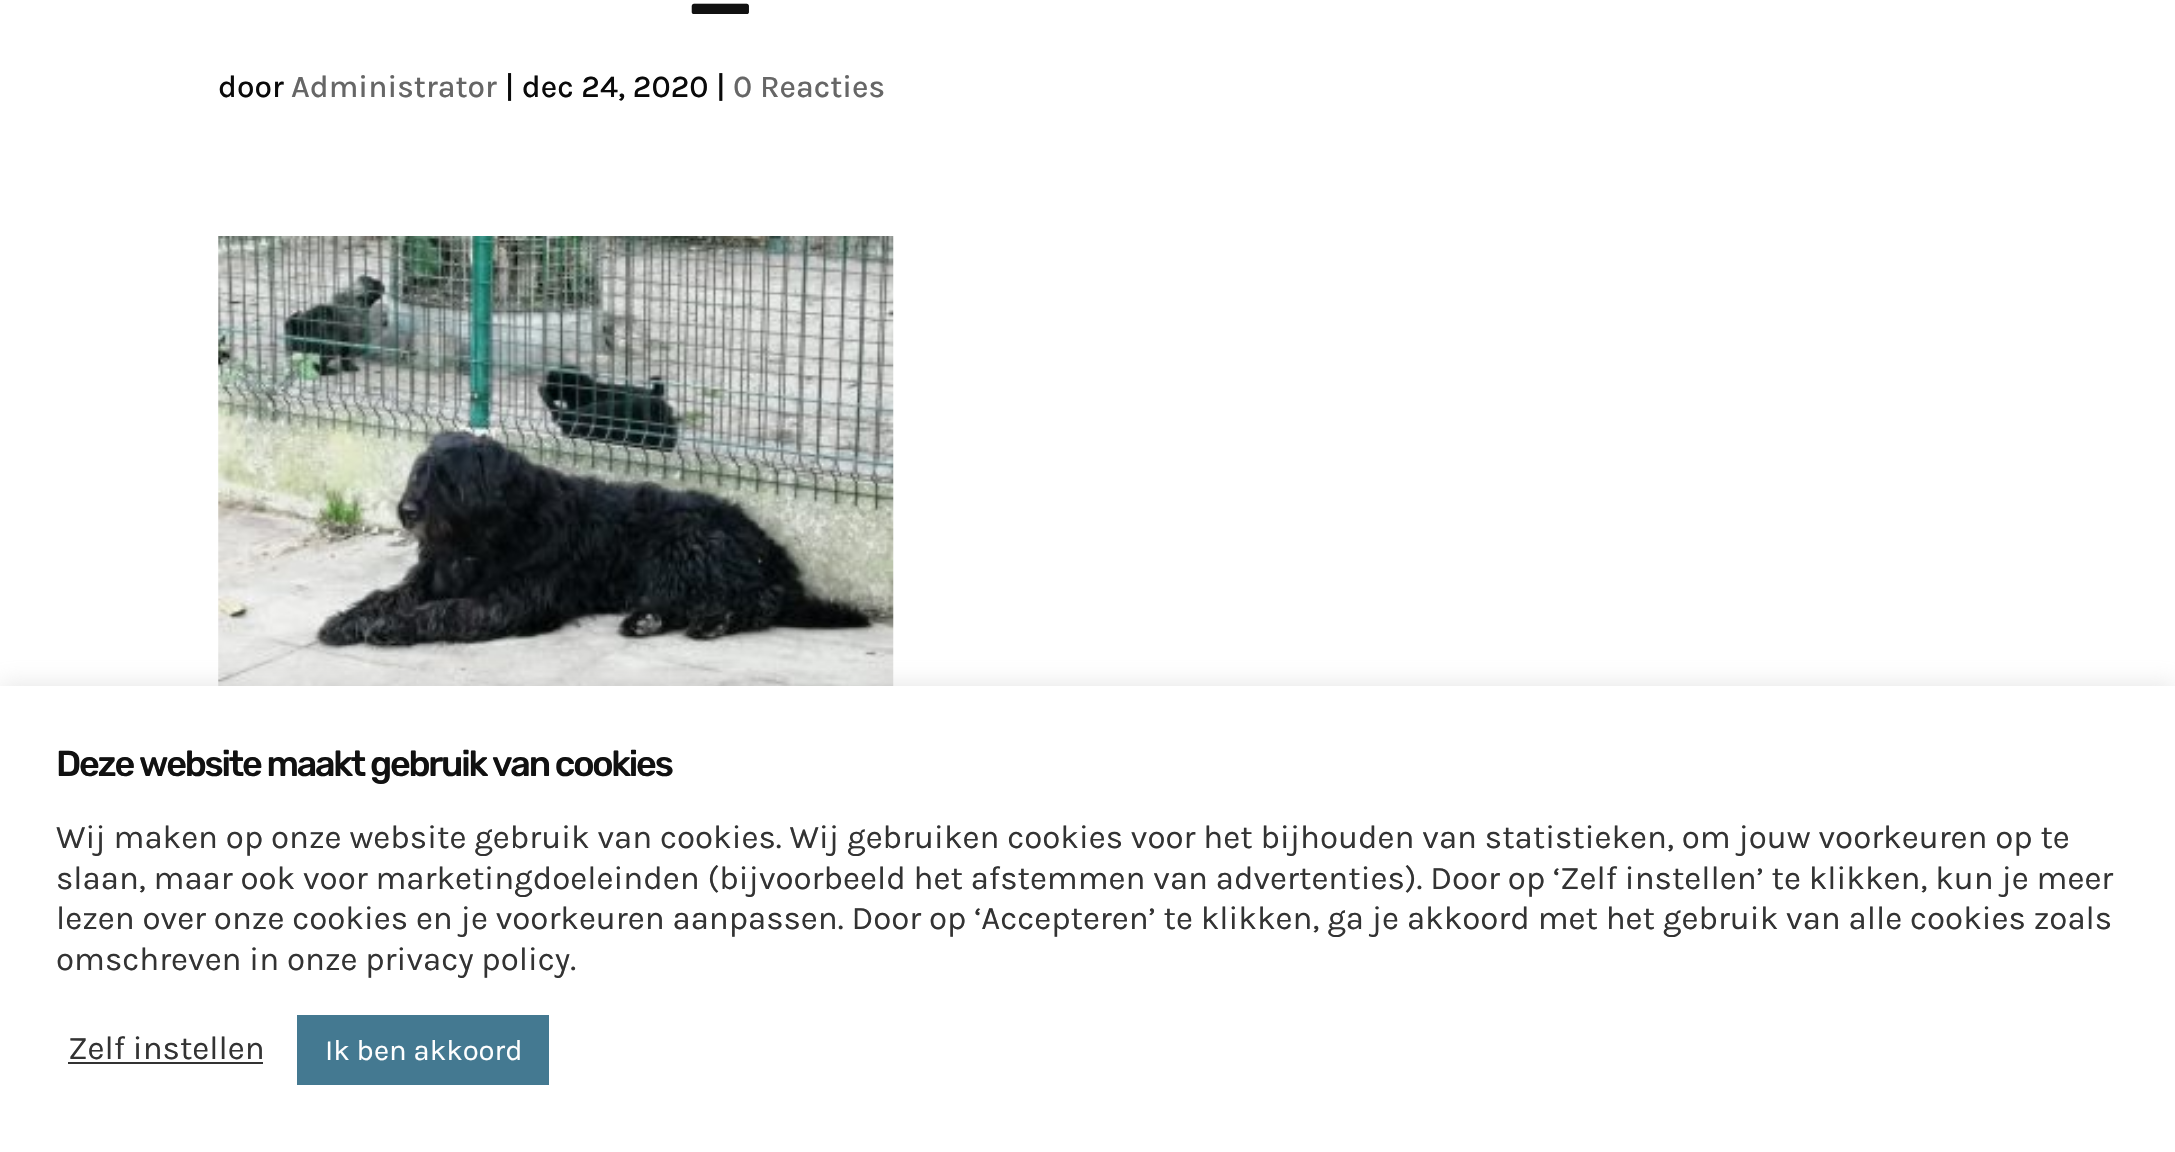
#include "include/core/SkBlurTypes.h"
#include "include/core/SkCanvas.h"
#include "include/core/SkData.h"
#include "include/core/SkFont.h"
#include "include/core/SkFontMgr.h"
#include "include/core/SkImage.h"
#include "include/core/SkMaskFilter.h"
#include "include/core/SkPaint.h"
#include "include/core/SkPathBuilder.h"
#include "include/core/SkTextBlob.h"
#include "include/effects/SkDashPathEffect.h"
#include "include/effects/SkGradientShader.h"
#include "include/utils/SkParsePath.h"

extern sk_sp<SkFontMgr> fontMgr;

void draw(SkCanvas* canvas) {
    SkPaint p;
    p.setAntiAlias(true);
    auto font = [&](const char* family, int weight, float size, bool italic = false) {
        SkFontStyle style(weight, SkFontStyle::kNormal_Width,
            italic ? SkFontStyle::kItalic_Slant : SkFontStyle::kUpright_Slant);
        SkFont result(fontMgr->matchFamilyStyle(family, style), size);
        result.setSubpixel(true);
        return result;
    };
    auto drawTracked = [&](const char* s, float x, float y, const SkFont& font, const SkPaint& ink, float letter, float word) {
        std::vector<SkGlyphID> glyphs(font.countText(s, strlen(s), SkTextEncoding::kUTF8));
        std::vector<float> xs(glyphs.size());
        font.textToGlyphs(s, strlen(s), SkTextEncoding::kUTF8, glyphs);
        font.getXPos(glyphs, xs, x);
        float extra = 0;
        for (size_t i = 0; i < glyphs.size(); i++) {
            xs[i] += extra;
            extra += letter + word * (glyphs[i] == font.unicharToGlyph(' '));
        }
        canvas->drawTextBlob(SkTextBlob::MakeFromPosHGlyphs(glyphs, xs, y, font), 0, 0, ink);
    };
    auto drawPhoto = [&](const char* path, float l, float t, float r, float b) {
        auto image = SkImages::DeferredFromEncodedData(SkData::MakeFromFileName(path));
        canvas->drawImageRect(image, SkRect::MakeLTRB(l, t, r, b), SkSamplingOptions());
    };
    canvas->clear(0xFFFFFFFF);
    auto font1 = font("Rubik", 500, 90);
    p.setColor(0xFF111111);
    drawTracked("_", 687, 9, font1, p, -2.25f, 0);
    auto font2 = font("Karla", 500, 31.5f);
    p.setColor(0xFF0A0A0A);
    canvas->drawString("door", 218, 97, font2, p);
    p.setColor(0xFF666666);
    canvas->drawString("Administrator", 291, 97, font2, p);
    p.setColor(0xFF0A0A0A);
    canvas->drawString("| dec 24, 2020 |", 505, 97, font2, p);
    p.setColor(0xFF666666);
    canvas->drawString("0 Reacties", 733, 97, font2, p);
    drawPhoto("media/1.png", 218, 236, 894, 686);
    p.setColor(0x4DACABAB);
    p.setMaskFilter(SkMaskFilter::MakeBlur(kNormal_SkBlurStyle, 11));
    canvas->drawRect(SkRect::MakeLTRB(0, 684, 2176, 1150), p);
    p.setMaskFilter(nullptr);
    p.setColor(0xFFFFFFFF);
    canvas->drawRect(SkRect::MakeLTRB(0, 686, 2175, 1152), p);
    auto font3 = font("Rubik", 500, 36);
    p.setColor(0xFF111111);
    drawTracked("Deze website maakt gebruik van cookies", 56, 776, font3, p, -2.25f, 0);
    auto font4 = font("Karla", 400, 33);
    p.setColor(0xFF333333);
    {
        const struct { const char* s; float x, y; } items[] = {
            {"Wij maken op onze website gebruik van cookies. Wij gebruiken cookies voor het bijhouden van statistieken, om jouw voorkeuren op te", 56, 848},
            {"slaan, maar ook voor marketingdoeleinden (bijvoorbeeld het afstemmen van advertenties). Door op ‘Zelf instellen’ te klikken, kun je meer", 56, 889},
            {"lezen over onze cookies en je voorkeuren aanpassen. Door op ‘Accepteren’ te klikken, ga je akkoord met het gebruik van alle cookies zoals", 56, 929},
            {"omschreven in onze privacy policy.", 56, 970},
            {"Zelf instellen", 68, 1059},
        };
        for (auto [s, x, y] : items) {
            canvas->drawString(s, x, y, font4, p);
        }
    }
    canvas->drawRect(SkRect::MakeLTRB(68, 1062, 263, 1064), p);
    p.setColor(0xFF447991);
    canvas->drawRect(SkRect::MakeLTRB(297, 1015, 549, 1085), p);
    auto font5 = font("Karla", 400, 29.25f);
    p.setColor(0xFFFFFFFF);
    canvas->drawString("Ik ben akkoord", 325, 1060, font5, p);
}
